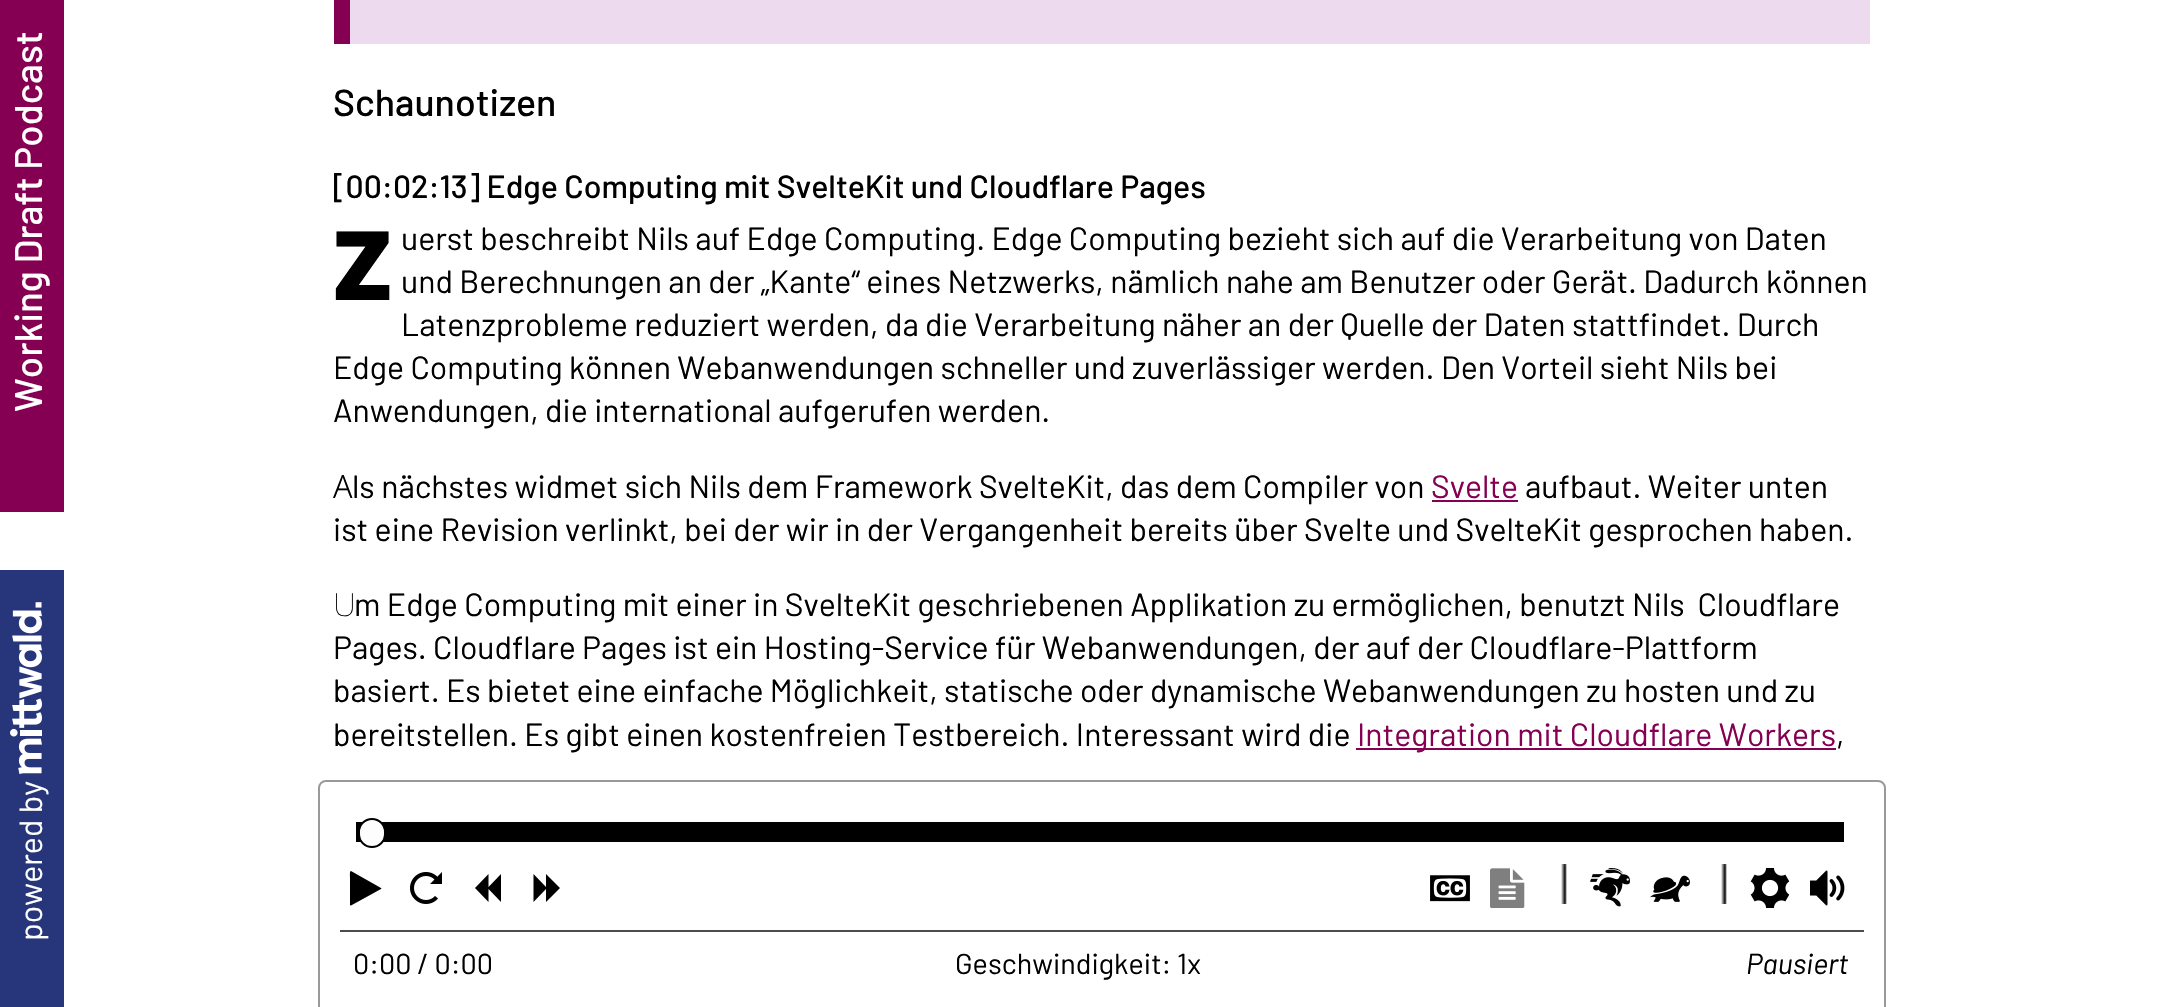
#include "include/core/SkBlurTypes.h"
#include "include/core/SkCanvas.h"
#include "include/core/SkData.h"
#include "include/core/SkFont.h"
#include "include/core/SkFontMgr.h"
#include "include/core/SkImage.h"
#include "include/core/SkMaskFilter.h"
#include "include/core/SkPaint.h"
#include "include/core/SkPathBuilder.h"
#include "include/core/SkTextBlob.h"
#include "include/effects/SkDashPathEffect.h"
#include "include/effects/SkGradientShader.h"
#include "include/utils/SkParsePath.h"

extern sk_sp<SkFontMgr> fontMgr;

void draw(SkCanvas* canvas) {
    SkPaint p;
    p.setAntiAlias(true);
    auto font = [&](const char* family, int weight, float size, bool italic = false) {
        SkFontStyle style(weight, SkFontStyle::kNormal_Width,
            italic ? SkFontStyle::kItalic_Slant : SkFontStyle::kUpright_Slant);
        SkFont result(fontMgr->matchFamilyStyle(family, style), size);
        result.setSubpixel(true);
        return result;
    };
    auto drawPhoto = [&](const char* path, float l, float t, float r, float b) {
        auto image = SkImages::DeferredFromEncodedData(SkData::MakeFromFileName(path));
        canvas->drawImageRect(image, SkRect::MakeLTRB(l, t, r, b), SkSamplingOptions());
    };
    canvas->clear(0xFFFFFFFF);
    p.setColor(0xFF850052);
    canvas->drawRect(SkRect::MakeLTRB(0, 0, 64, 512), p);
    auto font1 = font("Barlow", 500, 38.5f);
    p.setColor(0xFFFFFFFF);
    canvas->save();
    canvas->rotate(-90, 42, 412);
    canvas->drawString("Working Draft Podcast", 42, 412, font1, p);
    canvas->restore();
    p.setColor(0xFFEEDAEE);
    canvas->drawRect(SkRect::MakeLTRB(350, 0, 1870, 44), p);
    p.setColor(0xFF850052);
    canvas->drawRect(SkRect::MakeLTRB(334, 0, 350, 44), p);
    auto font2 = font("Barlow", 500, 37.5f);
    p.setColor(0xFF000000);
    canvas->drawString("Schaunotizen", 333, 116, font2, p);
    auto font3 = font("Barlow", 500, 32);
    canvas->drawString("[00:02:13] Edge Computing mit SvelteKit und Cloudflare Pages", 333, 198, font3, p);
    auto font4 = font("Barlow", 400, 32);
    {
        const struct { const char* s; float x, y; } items[] = {
            {"uerst beschreibt Nils auf Edge Computing. Edge Computing bezieht sich auf die Verarbeitung von Daten", 401, 250},
            {"und Berechnungen an der „Kante“ eines Netzwerks, nämlich nahe am Benutzer oder Gerät. Dadurch können", 401, 293},
            {"Latenzprobleme reduziert werden, da die Verarbeitung näher an der Quelle der Daten stattfindet. Durch", 401, 336},
            {"Edge Computing können Webanwendungen schneller und zuverlässiger werden. Den Vorteil sieht Nils bei", 333, 379},
            {"Anwendungen, die international aufgerufen werden.", 333, 422},
        };
        for (auto [s, x, y] : items) {
            canvas->drawString(s, x, y, font4, p);
        }
    }
    auto font5 = font("Noto Sans", 900, 96);
    canvas->drawString("Z", 333, 300, font5, p);
    auto font6 = font("Noto Sans", 300, 32);
    canvas->drawString("A", 333, 498, font6, p);
    canvas->drawString("ls nächstes widmet sich Nils dem Framework SvelteKit, das dem Compiler von", 352, 498, font4, p);
    p.setColor(0xFF850052);
    canvas->drawString("Svelte", 1431, 498, font4, p);
    canvas->drawRect(SkRect::MakeLTRB(1432, 500, 1518, 502), p);
    p.setColor(0xFF000000);
    {
        const struct { const char* s; float x, y; } items[] = {
            {"aufbaut. Weiter unten", 1525, 498},
            {"ist eine Revision verlinkt, bei der wir in der Vergangenheit bereits über Svelte und SvelteKit gesprochen haben.", 333, 541},
            {"m Edge Computing mit einer in SvelteKit geschriebenen Applikation zu ermöglichen, benutzt Nils  Cloudflare", 354, 616},
            {"Pages. Cloudflare Pages ist ein Hosting-Service für Webanwendungen, der auf der Cloudflare-Plattform", 333, 659},
            {"basiert. Es bietet eine einfache Möglichkeit, statische oder dynamische Webanwendungen zu hosten und zu", 333, 702},
            {"bereitstellen. Es gibt einen kostenfreien Testbereich. Interessant wird die", 333, 746},
        };
        for (auto [s, x, y] : items) {
            canvas->drawString(s, x, y, font4, p);
        }
    }
    p.setColor(0xFF850052);
    canvas->drawRect(SkRect::MakeLTRB(1356, 748, 1836, 750), p);
    canvas->drawString("Integration mit Cloudflare Workers", 1357, 746, font4, p);
    p.setColor(0xFF000000);
    canvas->drawString(",", 1836, 746, font4, p);
    auto font7 = font("Noto Sans", 100, 32);
    canvas->drawString("U", 333, 616, font7, p);
    p.setStyle(SkPaint::kStroke_Style);
    p.setStrokeWidth(2);
    p.setColor(0xFF999999);
    canvas->drawRoundRect(SkRect::MakeLTRB(319, 781, 1885, 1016), 7, 7, p);
    p.setStyle(SkPaint::kFill_Style);
    p.setColor(0xFF4C4C4C);
    canvas->drawRect(SkRect::MakeLTRB(340, 930, 1864, 932), p);
    p.setColor(0xFF000000);
    canvas->drawRect(SkRect::MakeLTRB(356, 822, 1844, 842), p);
    p.setColor(0xFFFDFDFD);
    canvas->drawRoundRect(SkRect::MakeLTRB(359, 819, 385, 847), 13, 13, p);
    p.setStyle(SkPaint::kStroke_Style);
    p.setColor(0xFF000000);
    canvas->drawRoundRect(SkRect::MakeLTRB(359, 819, 385, 847), 13, 13, p);
    p.setStyle(SkPaint::kFill_Style);
    canvas->drawPath(SkPathBuilder().moveTo(350, 905).lineTo(350, 877.5f).cubicTo(350, 875, 349.5f, 871, 351, 871).lineTo(381, 888).lineTo(381.5f, 888.5f).lineTo(381, 889).lineTo(351, 905.5f).lineTo(350.5f, 905.5f).close().detach(), p);
    drawPhoto("media/1.png", 410, 872, 442, 904);
    canvas->drawPath(SkPathBuilder().moveTo(488.5f, 874).lineTo(488.5f, 887).lineTo(501, 874).lineTo(501, 902).lineTo(488.5f, 889).lineTo(488.5f, 902).lineTo(475, 888).close().detach(), p);
    canvas->drawPath(SkPathBuilder().moveTo(546, 902).lineTo(546, 889).lineTo(533.5f, 902).lineTo(533.5f, 874).lineTo(546, 887).lineTo(546, 874).lineTo(560, 888).close().detach(), p);
    drawPhoto("media/2.png", 1430, 875, 1470, 902);
    drawPhoto("media/3.png", 1490, 868, 1525, 908);
    drawPhoto("media/4.png", 1561, 864, 1567, 904);
    drawPhoto("media/5.png", 1590, 868, 1630, 907);
    drawPhoto("media/6.png", 1650, 875, 1690, 902);
    drawPhoto("media/4.png", 1721, 864, 1727, 904);
    drawPhoto("media/7.png", 1750, 868, 1790, 908);
    drawPhoto("media/8.png", 1810, 870, 1845, 906);
    auto font8 = font("Barlow", 400, 28.75f);
    canvas->drawString("0:00 / 0:00", 353, 974, font8, p);
    canvas->drawString("Geschwindigkeit: 1x", 955, 974, font8, p);
    auto font9 = font("Barlow", 400, 28.75f, true);
    canvas->drawString("Pausiert", 1746, 974, font9, p);
    p.setColor(0xFF27367B);
    canvas->drawRect(SkRect::MakeLTRB(0, 570, 64, 1007), p);
    drawPhoto("media/9.png", 10, 602, 42, 774);
    p.setColor(0xFFFFFFFF);
    canvas->save();
    canvas->rotate(-90, 42, 941);
    canvas->drawString("powered by", 42, 941, font4, p);
    canvas->restore();
}
